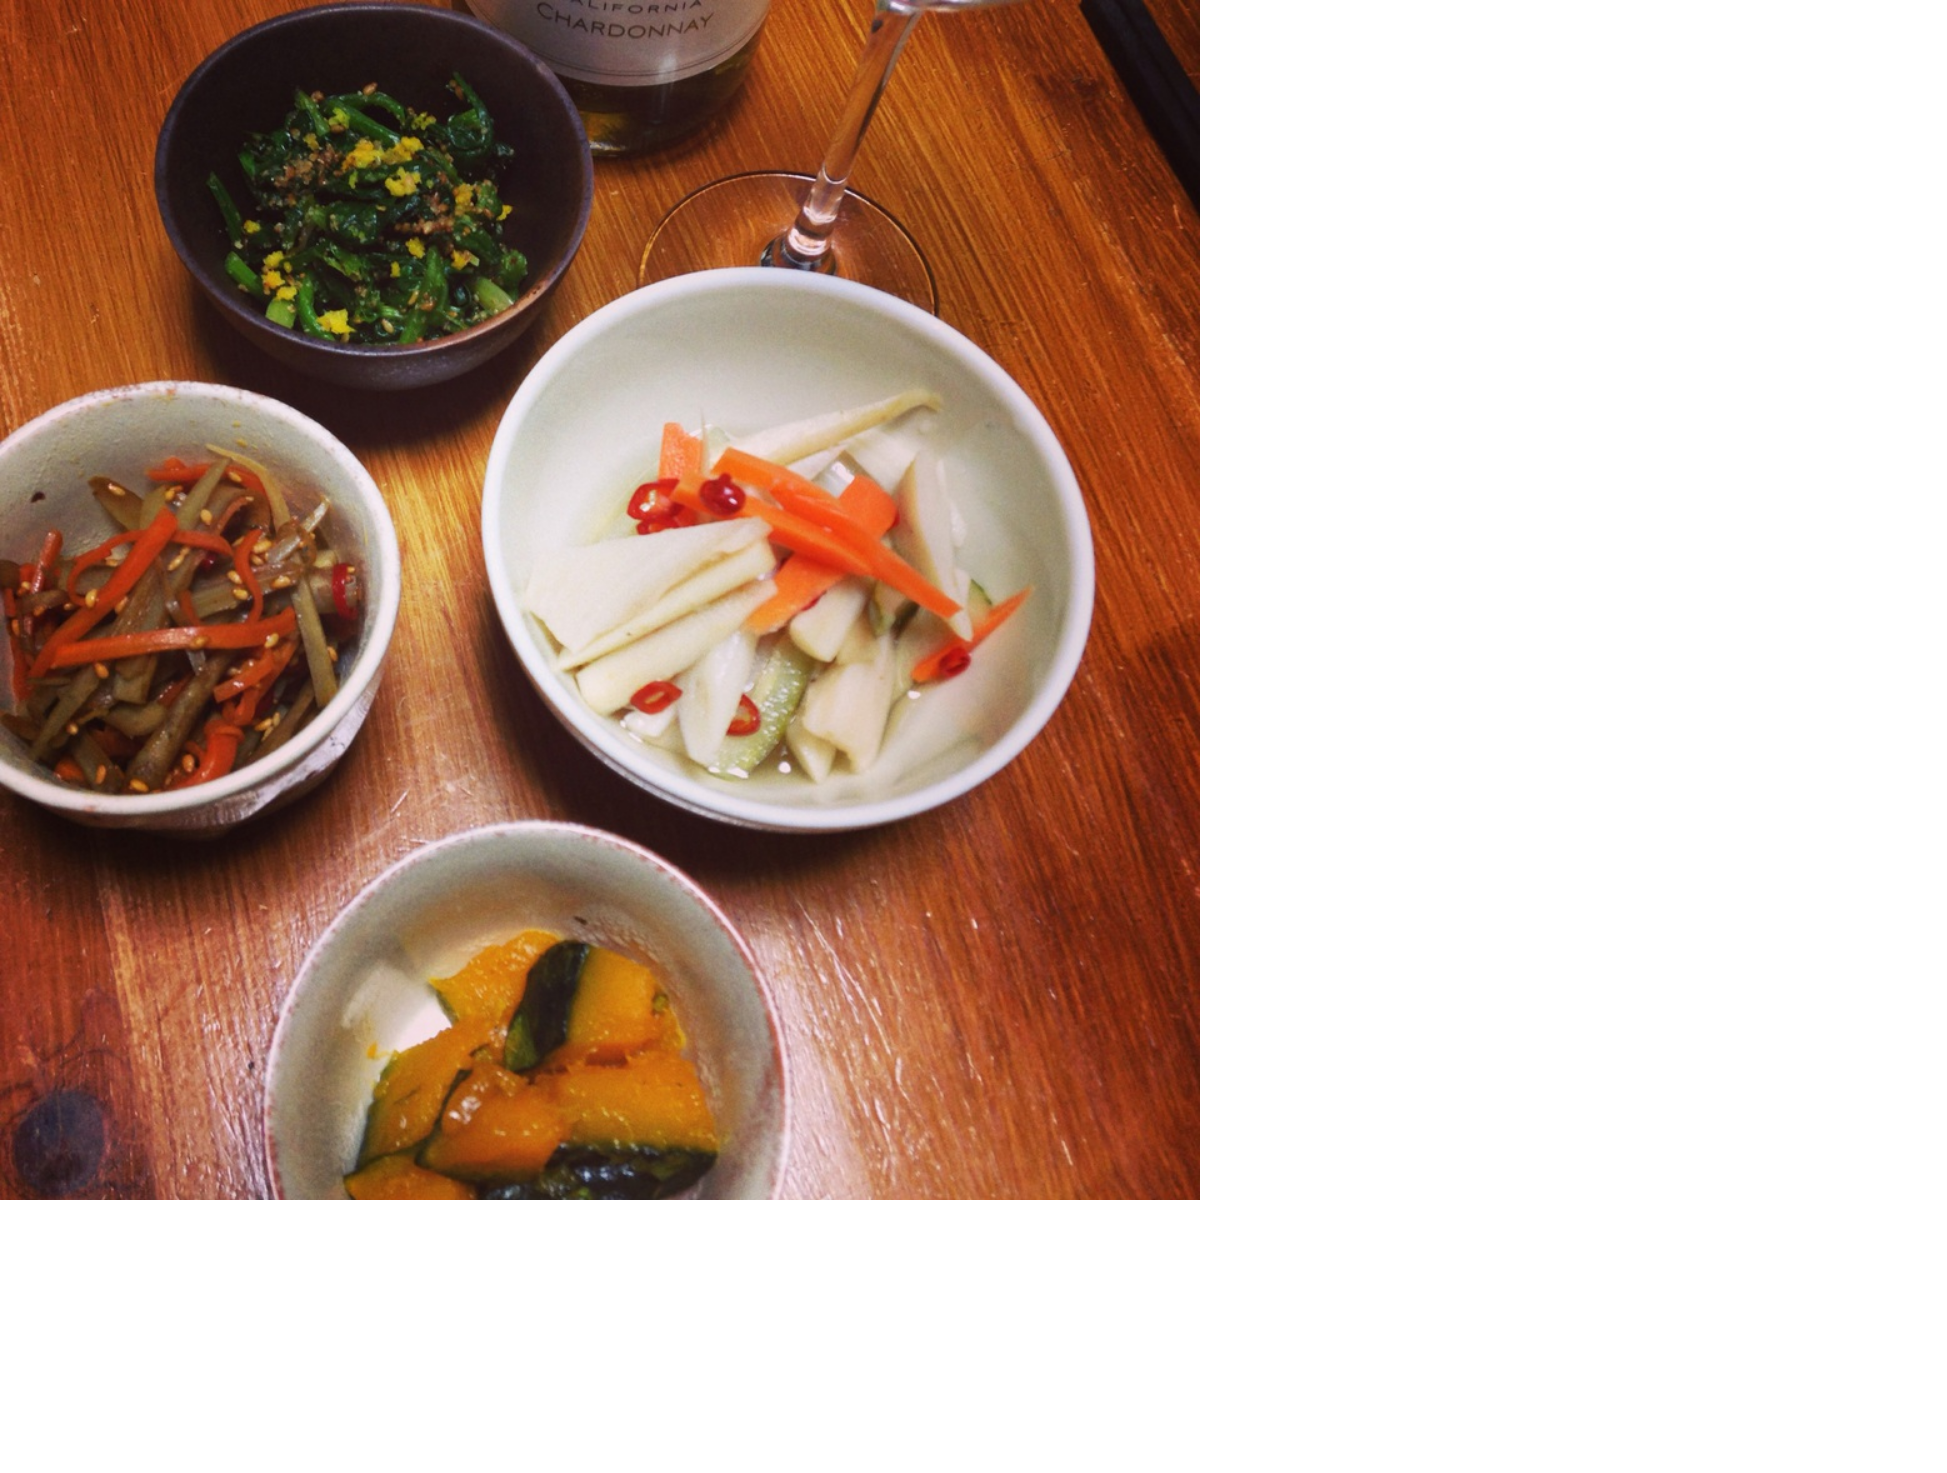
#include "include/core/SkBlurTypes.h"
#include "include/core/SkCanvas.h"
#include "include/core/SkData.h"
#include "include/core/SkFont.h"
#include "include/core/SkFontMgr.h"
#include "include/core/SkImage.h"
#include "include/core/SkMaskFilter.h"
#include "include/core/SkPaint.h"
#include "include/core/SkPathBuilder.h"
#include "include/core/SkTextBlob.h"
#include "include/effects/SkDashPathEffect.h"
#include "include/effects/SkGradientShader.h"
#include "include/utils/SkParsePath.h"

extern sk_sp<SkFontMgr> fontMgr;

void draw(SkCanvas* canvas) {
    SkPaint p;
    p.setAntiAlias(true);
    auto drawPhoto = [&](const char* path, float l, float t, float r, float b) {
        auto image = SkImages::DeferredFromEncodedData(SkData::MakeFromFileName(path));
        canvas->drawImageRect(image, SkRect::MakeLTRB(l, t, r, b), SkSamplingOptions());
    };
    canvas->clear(0xFFFFFFFF);
    drawPhoto("media/1.png", 0, 0, 1200, 1200);
}
